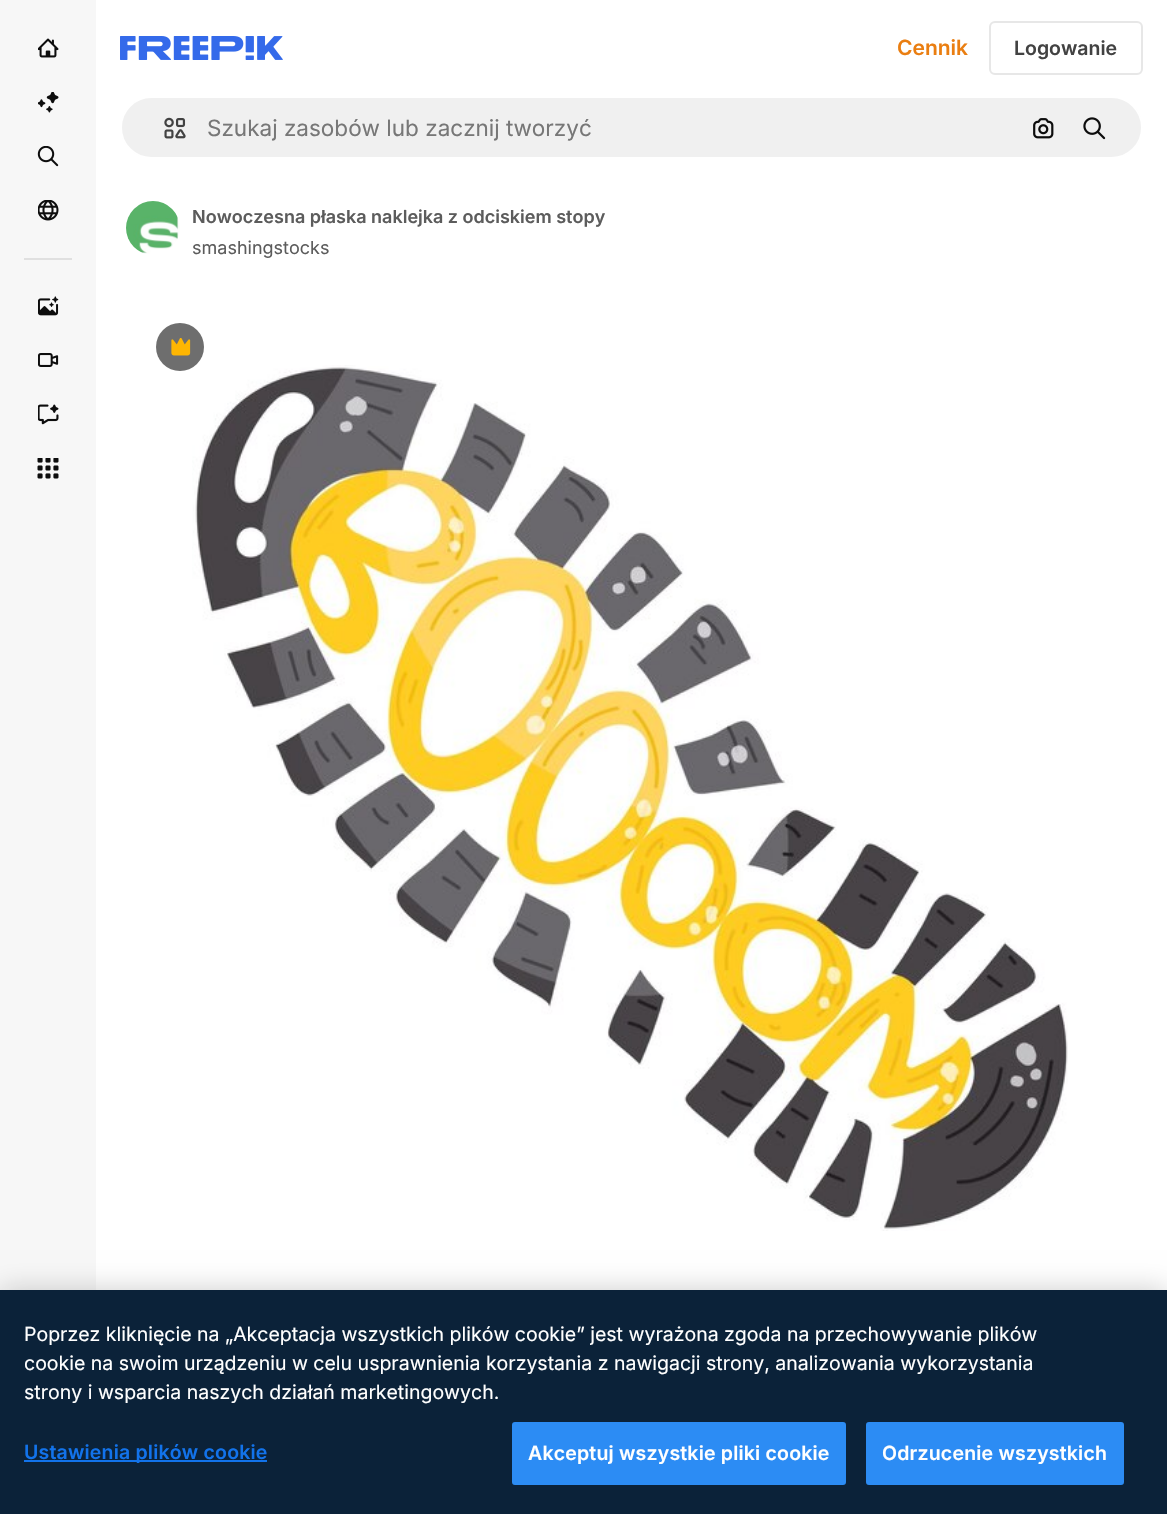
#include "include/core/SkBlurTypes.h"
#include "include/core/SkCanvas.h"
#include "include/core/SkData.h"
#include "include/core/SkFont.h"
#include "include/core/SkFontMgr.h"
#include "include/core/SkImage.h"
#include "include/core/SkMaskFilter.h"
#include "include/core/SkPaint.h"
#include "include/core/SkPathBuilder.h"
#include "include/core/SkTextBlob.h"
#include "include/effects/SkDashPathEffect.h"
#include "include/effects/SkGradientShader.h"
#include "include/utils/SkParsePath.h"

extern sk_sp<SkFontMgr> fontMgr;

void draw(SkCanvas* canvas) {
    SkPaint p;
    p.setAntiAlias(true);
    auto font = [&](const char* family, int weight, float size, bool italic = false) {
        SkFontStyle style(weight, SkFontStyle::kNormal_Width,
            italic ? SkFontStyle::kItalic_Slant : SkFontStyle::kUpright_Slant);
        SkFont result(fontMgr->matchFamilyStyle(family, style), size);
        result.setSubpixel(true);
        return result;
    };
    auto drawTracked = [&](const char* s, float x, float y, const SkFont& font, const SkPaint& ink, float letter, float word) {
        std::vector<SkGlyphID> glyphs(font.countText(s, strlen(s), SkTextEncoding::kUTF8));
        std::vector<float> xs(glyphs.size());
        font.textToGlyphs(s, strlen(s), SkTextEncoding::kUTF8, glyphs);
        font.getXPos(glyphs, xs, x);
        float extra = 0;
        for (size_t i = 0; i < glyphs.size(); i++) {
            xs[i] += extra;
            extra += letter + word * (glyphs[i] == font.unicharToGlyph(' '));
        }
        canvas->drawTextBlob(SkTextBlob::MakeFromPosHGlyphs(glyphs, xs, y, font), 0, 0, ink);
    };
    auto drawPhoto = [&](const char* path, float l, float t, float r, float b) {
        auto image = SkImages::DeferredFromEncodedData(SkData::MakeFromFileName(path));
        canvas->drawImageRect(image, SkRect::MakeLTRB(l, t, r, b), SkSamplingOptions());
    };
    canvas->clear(0xFFFFFFFF);
    p.setColor(0xFFF7F7F7);
    canvas->drawRect(SkRect::MakeLTRB(0, 0, 96, 1290), p);
    drawPhoto("media/1.png", 38, 38, 59, 58);
    drawPhoto("media/2.png", 38, 92, 59, 113);
    drawPhoto("media/3.png", 37, 146, 59, 167);
    drawPhoto("media/4.png", 38, 200, 59, 221);
    p.setColor(0xFFE0E0E0);
    canvas->drawRect(SkRect::MakeLTRB(24, 258, 72, 260), p);
    drawPhoto("media/5.png", 38, 296, 59, 316);
    drawPhoto("media/6.png", 38, 353, 59, 367);
    drawPhoto("media/7.png", 38, 404, 59, 425);
    drawPhoto("media/8.png", 37, 458, 59, 479);
    drawPhoto("media/9.png", 120, 36, 283, 60);
    auto font1 = font("Inter", 600, 21);
    p.setColor(0xFFEA7E11);
    canvas->drawString("Cennik", 897, 55, font1, p);
    p.setStyle(SkPaint::kStroke_Style);
    p.setStrokeWidth(2);
    p.setColor(0xFFE7E7E7);
    canvas->drawRoundRect(SkRect::MakeLTRB(990, 22, 1142, 74), 5, 5, p);
    auto font2 = font("Inter", 600, 19.5f);
    p.setStyle(SkPaint::kFill_Style);
    p.setColor(0xFF424242);
    canvas->drawString("Logowanie", 1014, 55, font2, p);
    p.setColor(0xFFF0F0F0);
    canvas->drawRoundRect(SkRect::MakeLTRB(121, 97, 1142, 158), 30.5f, 30.5f, p);
    p.setStyle(SkPaint::kStroke_Style);
    p.setColor(0xFFFFFFFF);
    canvas->drawRoundRect(SkRect::MakeLTRB(121, 97, 1142, 158), 30.5f, 30.5f, p);
    drawPhoto("media/10.png", 164, 117, 186, 139);
    auto font3 = font("Inter", 400, 22.5f);
    p.setStyle(SkPaint::kFill_Style);
    p.setColor(0xFF777777);
    canvas->drawString("Szukaj zasobów lub zacznij tworzyć", 207, 136, font3, p);
    drawPhoto("media/11.png", 1033, 118, 1054, 139);
    drawPhoto("media/12.png", 1083, 117, 1106, 140);
    drawPhoto("media/13.png", 126, 201, 180, 254);
    auto font4 = font("Inter", 600, 18);
    p.setColor(0xFF5C5C5C);
    canvas->drawString("Nowoczesna płaska naklejka z odciskiem stopy", 192, 223, font4, p);
    auto font5 = font("Inter", 400, 18);
    canvas->drawString("smashingstocks", 192, 254, font5, p);
    drawPhoto("media/15.png", 192, 365, 1068, 1231);
    p.setColor(0xFF6E6E6E);
    canvas->drawCircle(180, 347, 24, p);
    drawPhoto("media/14.png", 171, 338, 191, 356);
    p.setColor(0x33000000);
    p.setMaskFilter(SkMaskFilter::MakeBlur(kNormal_SkBlurStyle, 13.5f));
    canvas->drawRect(SkRect::MakeLTRB(0, 1290, 1167, 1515), p);
    p.setMaskFilter(nullptr);
    p.setColor(0xFF0B2239);
    canvas->drawRect(SkRect::MakeLTRB(0, 1290, 1167, 1514), p);
    auto font6 = font("Inter", 400, 19.5f);
    p.setColor(0xFFFFFFFF);
    {
        const struct { const char* s; float x, y; } items[] = {
            {"Poprzez kliknięcie na „Akceptacja wszystkich plików cookie” jest wyrażona zgoda na przechowywanie plików", 24, 1341},
            {"cookie na swoim urządzeniu w celu usprawnienia korzystania z nawigacji strony, analizowania wykorzystania", 24, 1370},
            {"strony i wsparcia naszych działań marketingowych.", 24, 1399},
        };
        for (auto [s, x, y] : items) {
            canvas->drawString(s, x, y, font6, p);
        }
    }
    p.setColor(0xFF1273EB);
    canvas->drawRect(SkRect::MakeLTRB(24, 1460, 267, 1462), p);
    drawTracked("Ustawienia plików cookie", 24, 1459, font2, p, 0.2f, 0);
    p.setColor(0xFF2C8CF4);
    canvas->drawRoundRect(SkRect::MakeLTRB(513, 1423, 845, 1484), 2, 2, p);
    p.setStyle(SkPaint::kStroke_Style);
    canvas->drawRoundRect(SkRect::MakeLTRB(513, 1423, 845, 1484), 2, 2, p);
    p.setStyle(SkPaint::kFill_Style);
    p.setColor(0xFFFFFFFF);
    drawTracked("Akceptuj wszystkie pliki cookie", 528, 1460, font2, p, 0.2f, 0);
    p.setColor(0xFF2C8CF4);
    canvas->drawRoundRect(SkRect::MakeLTRB(867, 1423, 1123, 1484), 2, 2, p);
    p.setStyle(SkPaint::kStroke_Style);
    canvas->drawRoundRect(SkRect::MakeLTRB(867, 1423, 1123, 1484), 2, 2, p);
    p.setStyle(SkPaint::kFill_Style);
    p.setColor(0xFFFFFFFF);
    drawTracked("Odrzucenie wszystkich", 882, 1460, font2, p, 0.2f, 0);
}
